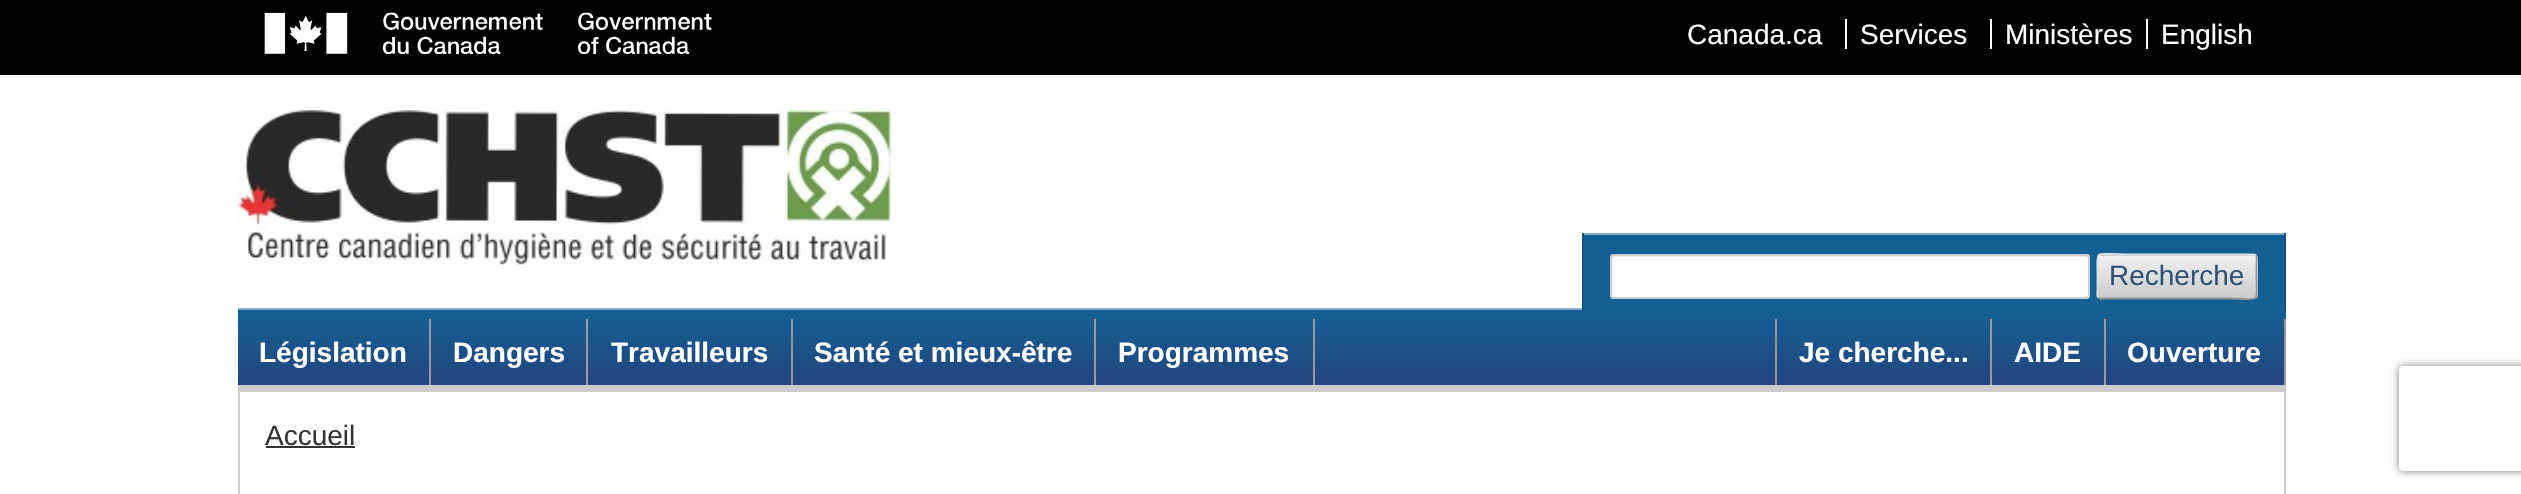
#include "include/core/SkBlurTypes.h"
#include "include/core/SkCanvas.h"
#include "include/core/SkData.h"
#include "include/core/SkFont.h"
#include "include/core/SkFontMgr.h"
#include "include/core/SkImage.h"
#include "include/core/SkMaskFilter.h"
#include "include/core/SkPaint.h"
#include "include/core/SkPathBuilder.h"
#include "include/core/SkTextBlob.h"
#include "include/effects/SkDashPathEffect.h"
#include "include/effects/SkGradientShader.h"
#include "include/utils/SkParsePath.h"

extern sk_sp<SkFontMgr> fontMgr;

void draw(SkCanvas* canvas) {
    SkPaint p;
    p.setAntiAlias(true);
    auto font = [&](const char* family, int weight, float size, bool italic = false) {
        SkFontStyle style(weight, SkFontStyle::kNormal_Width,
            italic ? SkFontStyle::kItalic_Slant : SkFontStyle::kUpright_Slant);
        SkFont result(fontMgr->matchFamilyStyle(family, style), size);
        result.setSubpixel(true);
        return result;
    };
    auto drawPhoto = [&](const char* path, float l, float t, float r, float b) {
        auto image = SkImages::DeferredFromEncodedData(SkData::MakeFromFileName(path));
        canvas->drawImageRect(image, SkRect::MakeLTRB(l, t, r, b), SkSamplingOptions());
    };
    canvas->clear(0xFFFFFFFF);
    p.setColor(0xFF000000);
    canvas->drawRect(SkRect::MakeLTRB(0, 0, 2521, 75), p);
    drawPhoto("media/1.png", 264, 12, 712, 54);
    auto font1 = font("Liberation Sans", 400, 28);
    p.setColor(0xFFFFFFFF);
    canvas->drawString("Canada.ca", 1687, 44, font1, p);
    canvas->drawString("Services", 1860, 44, font1, p);
    canvas->drawRect(SkRect::MakeLTRB(1845, 19, 1847, 49), p);
    canvas->drawString("Ministères", 2005, 44, font1, p);
    canvas->drawRect(SkRect::MakeLTRB(1990, 19, 1992, 49), p);
    canvas->drawString("English", 2161, 44, font1, p);
    canvas->drawRect(SkRect::MakeLTRB(2146, 19, 2148, 49), p);
    drawPhoto("media/2.png", 238, 110, 891, 265);
    {
        const struct { float l, t, r, b; SkColor color; } items[] = {
            {1584, 235, 2284, 310, 0xFF146094},
            {1582, 233, 2286, 235, 0xFF87AEC9},
            {2284, 233, 2286, 310, 0xFF15527D},
            {1582, 233, 1584, 310, 0xFF15527D},
        };
        for (auto [l, t, r, b, color] : items) {
            p.setColor(color);
            canvas->drawRect(SkRect::MakeLTRB(l, t, r, b), p);
        }
    }
    p.setColor(0xFFFFFFFF);
    canvas->drawRoundRect(SkRect::MakeLTRB(1610, 254, 2090, 299), 4, 4, p);
    p.setColor(0xFFECECEC);
    canvas->drawPath(SkPathBuilder().moveTo(1614, 257).lineTo(2086, 257).cubicTo(2087, 257, 2088, 258, 2088, 259).lineTo(2088, 258).cubicTo(2088, 257, 2087, 256, 2086, 256).lineTo(1614, 256).cubicTo(1613, 256, 1612, 257, 1612, 258).lineTo(1612, 259).cubicTo(1612, 258, 1613, 257, 1614, 257).close().detach(), p);
    p.setStyle(SkPaint::kStroke_Style);
    p.setStrokeWidth(2);
    p.setColor(0xFFCCCCCC);
    canvas->drawRoundRect(SkRect::MakeLTRB(1611, 255, 2089, 298), 3, 3, p);
    canvas->save();
    canvas->clipPath(SkPathBuilder().moveTo(2101, 254).lineTo(2254, 254).cubicTo(2256, 254, 2258, 256, 2258, 258).lineTo(2258, 295).cubicTo(2258, 297, 2256, 299, 2254, 299).lineTo(2101, 299).cubicTo(2099, 299, 2097, 297, 2097, 295).lineTo(2097, 258).cubicTo(2097, 256, 2099, 254, 2101, 254).close().detach(), true);
    p.setStyle(SkPaint::kFill_Style);
    {
        const SkColor colors[] = {0xFFF0F0F0, 0xFFCCCCCC};
        const float stops[] = {0, 1};
        const SkPoint ends[] = {{2177, 214}, {2177, 256}};
        p.setShader(SkGradientShader::MakeLinear(ends, colors, stops, 2, SkTileMode::kClamp));
        p.setAlpha(255);
    }
    canvas->drawRect(SkRect::MakeLTRB(2097, 254, 2258, 256), p);
    {
        const SkColor colors[] = {0xFFF0F0F0, 0xFFCCCCCC};
        const float stops[] = {0, 1};
        const SkPoint ends[] = {{2177, 256}, {2177, 298}};
        p.setShader(SkGradientShader::MakeLinear(ends, colors, stops, 2, SkTileMode::kClamp));
        p.setAlpha(255);
    }
    canvas->drawRect(SkRect::MakeLTRB(2097, 256, 2258, 298), p);
    {
        const SkColor colors[] = {0xFFF0F0F0, 0xFFCCCCCC};
        const float stops[] = {0, 1};
        const SkPoint ends[] = {{2177, 298}, {2177, 340}};
        p.setShader(SkGradientShader::MakeLinear(ends, colors, stops, 2, SkTileMode::kClamp));
        p.setAlpha(255);
    }
    canvas->drawRect(SkRect::MakeLTRB(2097, 298, 2258, 299), p);
    canvas->restore();
    p.setStyle(SkPaint::kStroke_Style);
    p.setStrokeWidth(1.8f);
    p.setShader(nullptr);
    p.setColor(0xFF939496);
    canvas->drawPath(SkPathBuilder().moveTo(2256, 255.5f).cubicTo(2257.5f, 257, 2256.5f, 263, 2256.5f, 263.5f).lineTo(2256.5f, 276.5f).cubicTo(2256.5f, 305.5f, 2261.5f, 298.5f, 2228.5f, 298.5f).lineTo(2100, 298.5f).lineTo(2098, 297.5f).detach(), p);
    p.setColor(0xFFDCDEE1);
    canvas->drawPath(SkPathBuilder().moveTo(2098, 297.5f).cubicTo(2096.5f, 296, 2097.5f, 290, 2097.5f, 289.5f).lineTo(2097.5f, 276.5f).cubicTo(2097.5f, 247.5f, 2092.5f, 254.5f, 2125.5f, 254.5f).lineTo(2254, 254.5f).lineTo(2256, 255.5f).detach(), p);
    p.setStyle(SkPaint::kFill_Style);
    p.setColor(0xFF335075);
    canvas->drawString("Recherche", 2109, 285, font1, p);
    {
        const SkColor colors[] = {0xFF146094, 0xFF23447E};
        const float stops[] = {0, 1};
        const SkPoint ends[] = {{1262, 310}, {1262, 385}};
        p.setShader(SkGradientShader::MakeLinear(ends, colors, stops, 2, SkTileMode::kClamp));
        p.setAlpha(255);
    }
    canvas->drawRect(SkRect::MakeLTRB(238, 310, 2286, 385), p);
    p.setShader(nullptr);
    {
        const struct { float l, t, r, b; SkColor color; } items[] = {
            {238, 308, 1582, 310, 0xFF87AEC9},
            {238, 385, 2286, 392, 0xFFCCCCCC},
            {429, 319, 431, 385, 0xFF999999},
        };
        for (auto [l, t, r, b, color] : items) {
            p.setColor(color);
            canvas->drawRect(SkRect::MakeLTRB(l, t, r, b), p);
        }
    }
    auto font2 = font("Liberation Sans", 700, 28);
    p.setColor(0xFFFFFFFF);
    canvas->drawString("Législation", 259, 362, font2, p);
    p.setColor(0xFF999999);
    canvas->drawRect(SkRect::MakeLTRB(586, 319, 588, 385), p);
    p.setColor(0xFFFFFFFF);
    canvas->drawString("Dangers", 453, 362, font2, p);
    p.setColor(0xFF999999);
    canvas->drawRect(SkRect::MakeLTRB(791, 319, 793, 385), p);
    p.setColor(0xFFFFFFFF);
    canvas->drawString("Travailleurs", 611, 362, font2, p);
    p.setColor(0xFF999999);
    canvas->drawRect(SkRect::MakeLTRB(1094, 319, 1096, 385), p);
    p.setColor(0xFFFFFFFF);
    canvas->drawString("Santé et mieux-être", 814, 362, font2, p);
    p.setColor(0xFF999999);
    canvas->drawRect(SkRect::MakeLTRB(1313, 319, 1315, 385), p);
    p.setColor(0xFFFFFFFF);
    canvas->drawString("Programmes", 1118, 362, font2, p);
    p.setColor(0xFF999999);
    canvas->drawRect(SkRect::MakeLTRB(1990, 319, 1992, 385), p);
    canvas->drawRect(SkRect::MakeLTRB(1775, 319, 1777, 385), p);
    p.setColor(0xFFFFFFFF);
    canvas->drawString("Je cherche...", 1799, 362, font2, p);
    p.setColor(0xFF999999);
    canvas->drawRect(SkRect::MakeLTRB(2104, 319, 2106, 385), p);
    p.setColor(0xFFFFFFFF);
    canvas->drawString("AIDE", 2014, 362, font2, p);
    p.setColor(0xFF999999);
    canvas->drawRect(SkRect::MakeLTRB(2284, 319, 2286, 385), p);
    p.setColor(0xFFFFFFFF);
    canvas->drawString("Ouverture", 2127, 362, font2, p);
    p.setColor(0xFFCCCCCC);
    canvas->drawRect(SkRect::MakeLTRB(2284, 392, 2286, 494), p);
    canvas->drawRect(SkRect::MakeLTRB(238, 392, 240, 494), p);
    p.setColor(0xFF333333);
    canvas->drawString("Accueil", 265, 445, font1, p);
    canvas->drawRect(SkRect::MakeLTRB(266, 446, 355, 448), p);
    canvas->save();
    canvas->clipPath(SkPathBuilder(SkPathFillType::kEvenOdd).moveTo(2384, 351).lineTo(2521, 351).lineTo(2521, 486).lineTo(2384, 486).close().moveTo(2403, 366).lineTo(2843, 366).cubicTo(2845, 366, 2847, 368, 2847, 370).lineTo(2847, 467).cubicTo(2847, 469, 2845, 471, 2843, 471).lineTo(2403, 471).cubicTo(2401, 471, 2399, 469, 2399, 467).lineTo(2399, 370).cubicTo(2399, 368, 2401, 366, 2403, 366).close().detach(), true);
    p.setColor(0xFF808080);
    p.setMaskFilter(SkMaskFilter::MakeBlur(kNormal_SkBlurStyle, 4.5f));
    canvas->drawRoundRect(SkRect::MakeLTRB(2399, 366, 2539, 471), 4, 4, p);
    p.setMaskFilter(nullptr);
    canvas->restore();
}
